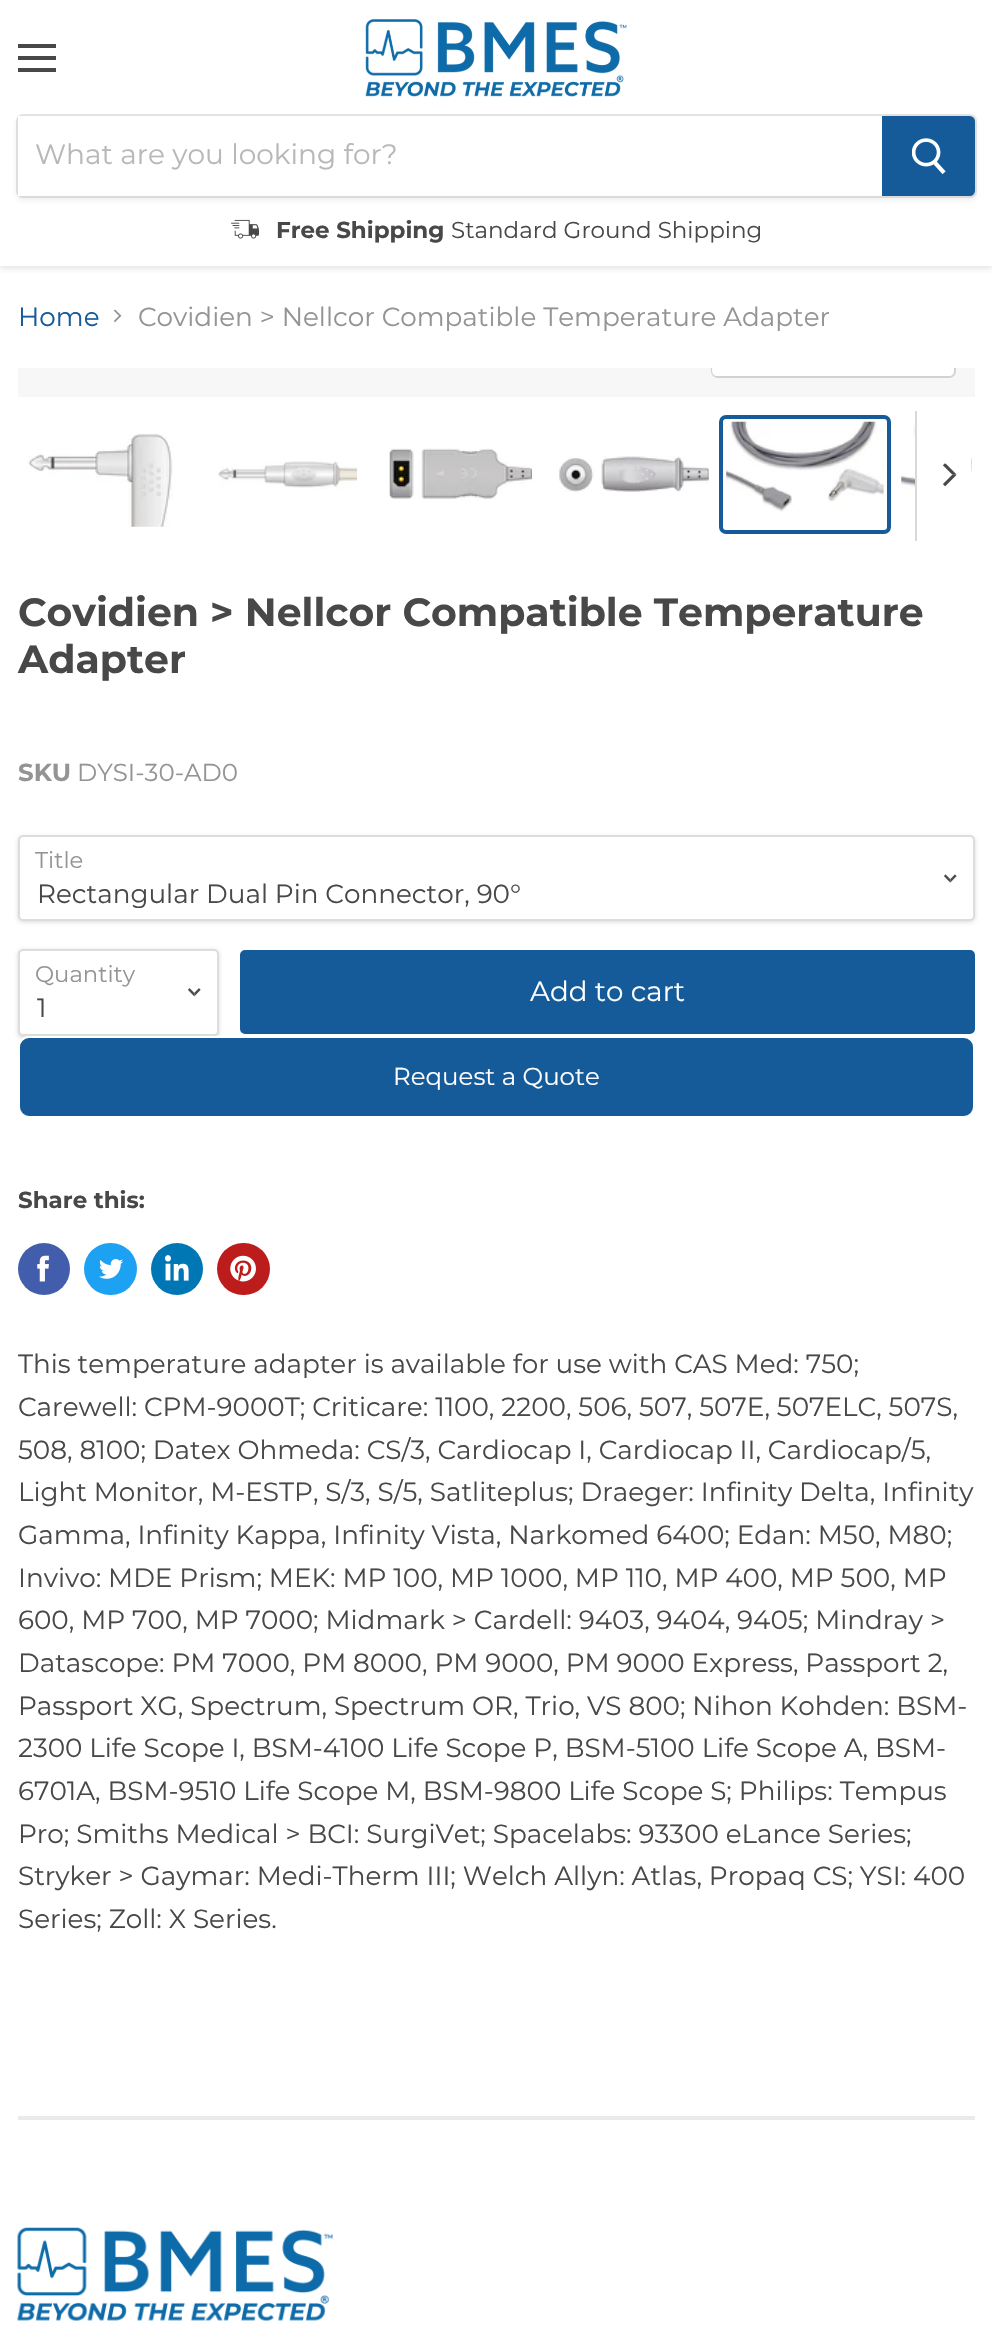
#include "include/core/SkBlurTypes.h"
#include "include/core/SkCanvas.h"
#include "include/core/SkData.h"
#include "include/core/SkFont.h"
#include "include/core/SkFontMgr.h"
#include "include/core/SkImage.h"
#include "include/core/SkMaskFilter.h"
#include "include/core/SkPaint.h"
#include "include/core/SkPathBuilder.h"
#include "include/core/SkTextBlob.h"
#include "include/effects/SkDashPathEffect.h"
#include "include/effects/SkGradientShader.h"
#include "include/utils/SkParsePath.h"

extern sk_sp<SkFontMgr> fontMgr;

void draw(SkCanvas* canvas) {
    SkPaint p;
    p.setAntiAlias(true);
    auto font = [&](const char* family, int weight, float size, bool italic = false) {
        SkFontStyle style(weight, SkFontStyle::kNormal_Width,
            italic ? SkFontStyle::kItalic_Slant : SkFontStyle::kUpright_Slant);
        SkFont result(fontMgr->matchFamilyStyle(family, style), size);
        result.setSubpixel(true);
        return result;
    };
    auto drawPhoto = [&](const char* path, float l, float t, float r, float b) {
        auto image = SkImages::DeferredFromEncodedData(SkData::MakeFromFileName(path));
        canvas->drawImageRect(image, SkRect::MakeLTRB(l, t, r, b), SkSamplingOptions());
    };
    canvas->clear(0xFFFFFFFF);
    canvas->save();
    canvas->clipRect(SkRect::MakeLTRB(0, 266, 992, 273));
    p.setColor(0x407F7F7F);
    p.setMaskFilter(SkMaskFilter::MakeBlur(kNormal_SkBlurStyle, 3.5f));
    canvas->drawRect(SkRect::MakeLTRB(0, 2, 992, 268), p);
    p.setMaskFilter(nullptr);
    canvas->restore();
    {
        const struct { float l, t, r, b; SkColor color; } items[] = {
            {18, 44, 56, 48, 0xFF484848},
            {18, 56, 56, 60, 0xFF484848},
            {18, 68, 56, 72, 0xFF484848},
        };
        for (auto [l, t, r, b, color] : items) {
            p.setColor(color);
            canvas->drawRect(SkRect::MakeLTRB(l, t, r, b), p);
        }
    }
    drawPhoto("media/1.png", 365, 19, 627, 97);
    p.setColor(0x1C7F7F7F);
    p.setMaskFilter(SkMaskFilter::MakeBlur(kNormal_SkBlurStyle, 2.5f));
    canvas->drawRoundRect(SkRect::MakeLTRB(16, 117, 977, 201), 7, 7, p);
    p.setMaskFilter(nullptr);
    p.setStyle(SkPaint::kStroke_Style);
    p.setStrokeWidth(2);
    p.setColor(0x337F7F7F);
    canvas->drawRoundRect(SkRect::MakeLTRB(17, 115, 976, 197), 6, 6, p);
    p.setStyle(SkPaint::kFill_Style);
    p.setColor(0xFFFFFFFF);
    canvas->drawRect(SkRect::MakeLTRB(18, 116, 882, 196), p);
    auto font1 = font("Montserrat", 400, 28);
    p.setColor(0xFFB8B8B8);
    canvas->drawString("What are you looking for?", 35, 164, font1, p);
    p.setColor(0xFF155B99);
    canvas->drawPath(SkPathBuilder().moveTo(883, 117).lineTo(970, 117).cubicTo(972, 117, 974, 119, 974, 121).lineTo(974, 191).cubicTo(974, 193, 972, 195, 970, 195).lineTo(883, 195).close().detach(), p);
    p.setStyle(SkPaint::kStroke_Style);
    canvas->drawPath(SkPathBuilder().moveTo(883, 117).lineTo(970, 117).cubicTo(972, 117, 974, 119, 974, 121).lineTo(974, 191).cubicTo(974, 193, 972, 195, 970, 195).lineTo(883, 195).close().detach(), p);
    drawPhoto("media/2.png", 912, 138, 946, 175);
    drawPhoto("media/3.png", 231, 219, 259, 239);
    auto font2 = font("Montserrat", 700, 23);
    p.setStyle(SkPaint::kFill_Style);
    p.setColor(0xFF484848);
    canvas->drawString("Free Shipping", 276, 238, font2, p);
    auto font3 = font("Montserrat", 400, 23);
    canvas->drawString("Standard Ground Shipping", 451, 238, font3, p);
    auto font4 = font("Montserrat", 400, 26.25f);
    p.setColor(0xFF155B99);
    canvas->drawString("Home", 18, 326, font4, p);
    drawPhoto("media/4.png", 114, 309, 122, 323);
    p.setColor(0xFF949494);
    canvas->drawString("Covidien > Nellcor Compatible Temperature Adapter", 138, 326, font4, p);
    p.setColor(0xFFF7F7F7);
    canvas->drawRect(SkRect::MakeLTRB(18, 368, 975, 397), p);
    canvas->save();
    canvas->clipRect(SkRect::MakeLTRB(18, 368, 975, 397));
    p.setStyle(SkPaint::kStroke_Style);
    p.setColor(0xFFD2D2D2);
    canvas->drawRoundRect(SkRect::MakeLTRB(712, 328, 955, 377), 6, 6, p);
    canvas->restore();
    p.setStyle(SkPaint::kFill_Style);
    p.setColor(0xE6FFFFFF);
    canvas->drawPath(SkPathBuilder().moveTo(712, 368).lineTo(954, 368).lineTo(954, 371).cubicTo(954, 374, 952, 376, 949, 376).lineTo(717, 376).cubicTo(714, 376, 712, 374, 712, 371).close().detach(), p);
    drawPhoto("media/11.png", 901, 421, 972, 500);
    p.setColor(0xFFFFFFFF);
    canvas->drawRect(SkRect::MakeLTRB(917, 421, 971, 500), p);
    p.setColor(0xFFD9D9D9);
    canvas->drawRect(SkRect::MakeLTRB(915, 411, 917, 541), p);
    drawPhoto("media/5.png", 943, 463, 957, 487);
    drawPhoto("media/6.png", 28, 434, 173, 527);
    drawPhoto("media/7.png", 218, 461, 357, 489);
    drawPhoto("media/8.png", 389, 448, 532, 500);
    drawPhoto("media/9.png", 559, 456, 709, 493);
    p.setStyle(SkPaint::kStroke_Style);
    p.setStrokeWidth(4);
    p.setColor(0xFF155B99);
    canvas->drawRoundRect(SkRect::MakeLTRB(721, 417, 889, 532), 5, 5, p);
    drawPhoto("media/10.png", 726, 421, 884, 512);
    auto font5 = font("Montserrat", 700, 39.4f);
    p.setStyle(SkPaint::kFill_Style);
    p.setColor(0xFF484848);
    canvas->drawString("Covidien > Nellcor Compatible Temperature", 18, 626, font5, p);
    canvas->drawString("Adapter", 18, 673, font5, p);
    auto font6 = font("Montserrat", 700, 24.5f);
    p.setColor(0xFF949494);
    canvas->drawString("SKU", 18, 781, font6, p);
    auto font7 = font("Montserrat", 400, 24.5f);
    canvas->drawString("DYSI-30-AD0", 77, 781, font7, p);
    p.setColor(0x26000000);
    p.setMaskFilter(SkMaskFilter::MakeBlur(kNormal_SkBlurStyle, 2));
    canvas->drawRoundRect(SkRect::MakeLTRB(18, 837, 975, 922), 5, 5, p);
    p.setMaskFilter(nullptr);
    p.setColor(0xFFFFFFFF);
    canvas->drawRoundRect(SkRect::MakeLTRB(19, 836, 974, 920), 4, 4, p);
    p.setStyle(SkPaint::kStroke_Style);
    p.setStrokeWidth(2);
    p.setColor(0xFFDDDDDD);
    canvas->drawRoundRect(SkRect::MakeLTRB(19, 836, 974, 920), 4, 4, p);
    auto font8 = font("Montserrat", 400, 22.75f);
    p.setStyle(SkPaint::kFill_Style);
    p.setColor(0xFF949494);
    canvas->drawString("Title", 35, 868, font8, p);
    drawPhoto("media/12.png", 943, 874, 957, 883);
    canvas->save();
    canvas->clipRect(SkRect::MakeLTRB(37, 879, 924, 908));
    p.setColor(0xFF484848);
    canvas->drawString("Rectangular Dual Pin Connector, 90°", 37, 903, font4, p);
    canvas->restore();
    p.setColor(0x26000000);
    p.setMaskFilter(SkMaskFilter::MakeBlur(kNormal_SkBlurStyle, 2));
    canvas->drawRoundRect(SkRect::MakeLTRB(18, 950, 219, 1038), 5, 5, p);
    p.setMaskFilter(nullptr);
    p.setColor(0xFFFFFFFF);
    canvas->drawRoundRect(SkRect::MakeLTRB(19, 950, 218, 1035), 4, 4, p);
    p.setStyle(SkPaint::kStroke_Style);
    p.setColor(0xFFDDDDDD);
    canvas->drawRoundRect(SkRect::MakeLTRB(19, 950, 218, 1035), 4, 4, p);
    p.setStyle(SkPaint::kFill_Style);
    p.setColor(0xFF949494);
    canvas->drawString("Quantity", 35, 982, font8, p);
    drawPhoto("media/13.png", 187, 988, 201, 997);
    p.setColor(0xFF484848);
    canvas->drawString("1", 37, 1017, font4, p);
    p.setColor(0xFF155B99);
    canvas->drawRoundRect(SkRect::MakeLTRB(241, 951, 974, 1033), 4, 4, p);
    p.setStyle(SkPaint::kStroke_Style);
    canvas->drawRoundRect(SkRect::MakeLTRB(241, 951, 974, 1033), 4, 4, p);
    auto font9 = font("Montserrat", 400, 27.75f);
    p.setStyle(SkPaint::kFill_Style);
    p.setColor(0xFFFFFFFF);
    canvas->drawString("Add to cart", 530, 1001, font9, p);
    p.setColor(0xFF165B99);
    canvas->drawRoundRect(SkRect::MakeLTRB(19, 1037, 974, 1117), 10, 10, p);
    p.setStyle(SkPaint::kStroke_Style);
    p.setColor(0xFFFFFFFF);
    canvas->drawRoundRect(SkRect::MakeLTRB(19, 1037, 974, 1117), 10, 10, p);
    p.setStyle(SkPaint::kFill_Style);
    canvas->drawString("Request a Quote", 393, 1085, font7, p);
    p.setColor(0xFF484848);
    canvas->drawString("Share this:", 18, 1208, font2, p);
    p.setColor(0xFF425DAB);
    canvas->drawCircle(44, 1269, 26, p);
    drawPhoto("media/14.png", 37, 1255, 49, 1282);
    p.setColor(0xFF1DA1F2);
    canvas->drawRoundRect(SkRect::MakeLTRB(84, 1243, 137, 1295), 26, 26, p);
    drawPhoto("media/15.png", 99, 1259, 124, 1279);
    p.setColor(0xFF0077B5);
    canvas->drawCircle(177, 1269, 26, p);
    drawPhoto("media/16.png", 164, 1255, 189, 1281);
    p.setColor(0xFFBD1C1C);
    canvas->drawRoundRect(SkRect::MakeLTRB(217, 1243, 270, 1295), 26, 26, p);
    drawPhoto("media/17.png", 230, 1255, 256, 1282);
    p.setColor(0xFF484848);
    {
        const struct { const char* s; float x, y; } items[] = {
            {"This temperature adapter is available for use with CAS Med: 750;", 18, 1373},
            {"Carewell: CPM-9000T; Criticare: 1100, 2200, 506, 507, 507E, 507ELC, 507S,", 18, 1416},
            {"508, 8100; Datex Ohmeda: CS/3, Cardiocap I, Cardiocap II, Cardiocap/5,", 18, 1459},
            {"Light Monitor, M-ESTP, S/3, S/5, Satliteplus; Draeger: Infinity Delta, Infinity", 18, 1501},
            {"Gamma, Infinity Kappa, Infinity Vista, Narkomed 6400; Edan: M50, M80;", 18, 1544},
            {"Invivo: MDE Prism; MEK: MP 100, MP 1000, MP 110, MP 400, MP 500, MP", 18, 1587},
            {"600, MP 700, MP 7000; Midmark > Cardell: 9403, 9404, 9405; Mindray >", 18, 1629},
            {"Datascope: PM 7000, PM 8000, PM 9000, PM 9000 Express, Passport 2,", 18, 1672},
            {"Passport XG, Spectrum, Spectrum OR, Trio, VS 800; Nihon Kohden: BSM-", 18, 1715},
            {"2300 Life Scope I, BSM-4100 Life Scope P, BSM-5100 Life Scope A, BSM-", 18, 1757},
            {"6701A, BSM-9510 Life Scope M, BSM-9800 Life Scope S; Philips: Tempus", 18, 1800},
            {"Pro; Smiths Medical > BCI: SurgiVet; Spacelabs: 93300 eLance Series;", 18, 1843},
            {"Stryker > Gaymar: Medi-Therm III; Welch Allyn: Atlas, Propaq CS; YSI: 400", 18, 1885},
            {"Series; Zoll: X Series.", 18, 1928},
        };
        for (auto [s, x, y] : items) {
            canvas->drawString(s, x, y, font4, p);
        }
    }
    p.setColor(0x297F7F7F);
    canvas->drawRect(SkRect::MakeLTRB(18, 2116, 975, 2120), p);
    drawPhoto("media/18.png", 17, 2227, 333, 2321);
}
